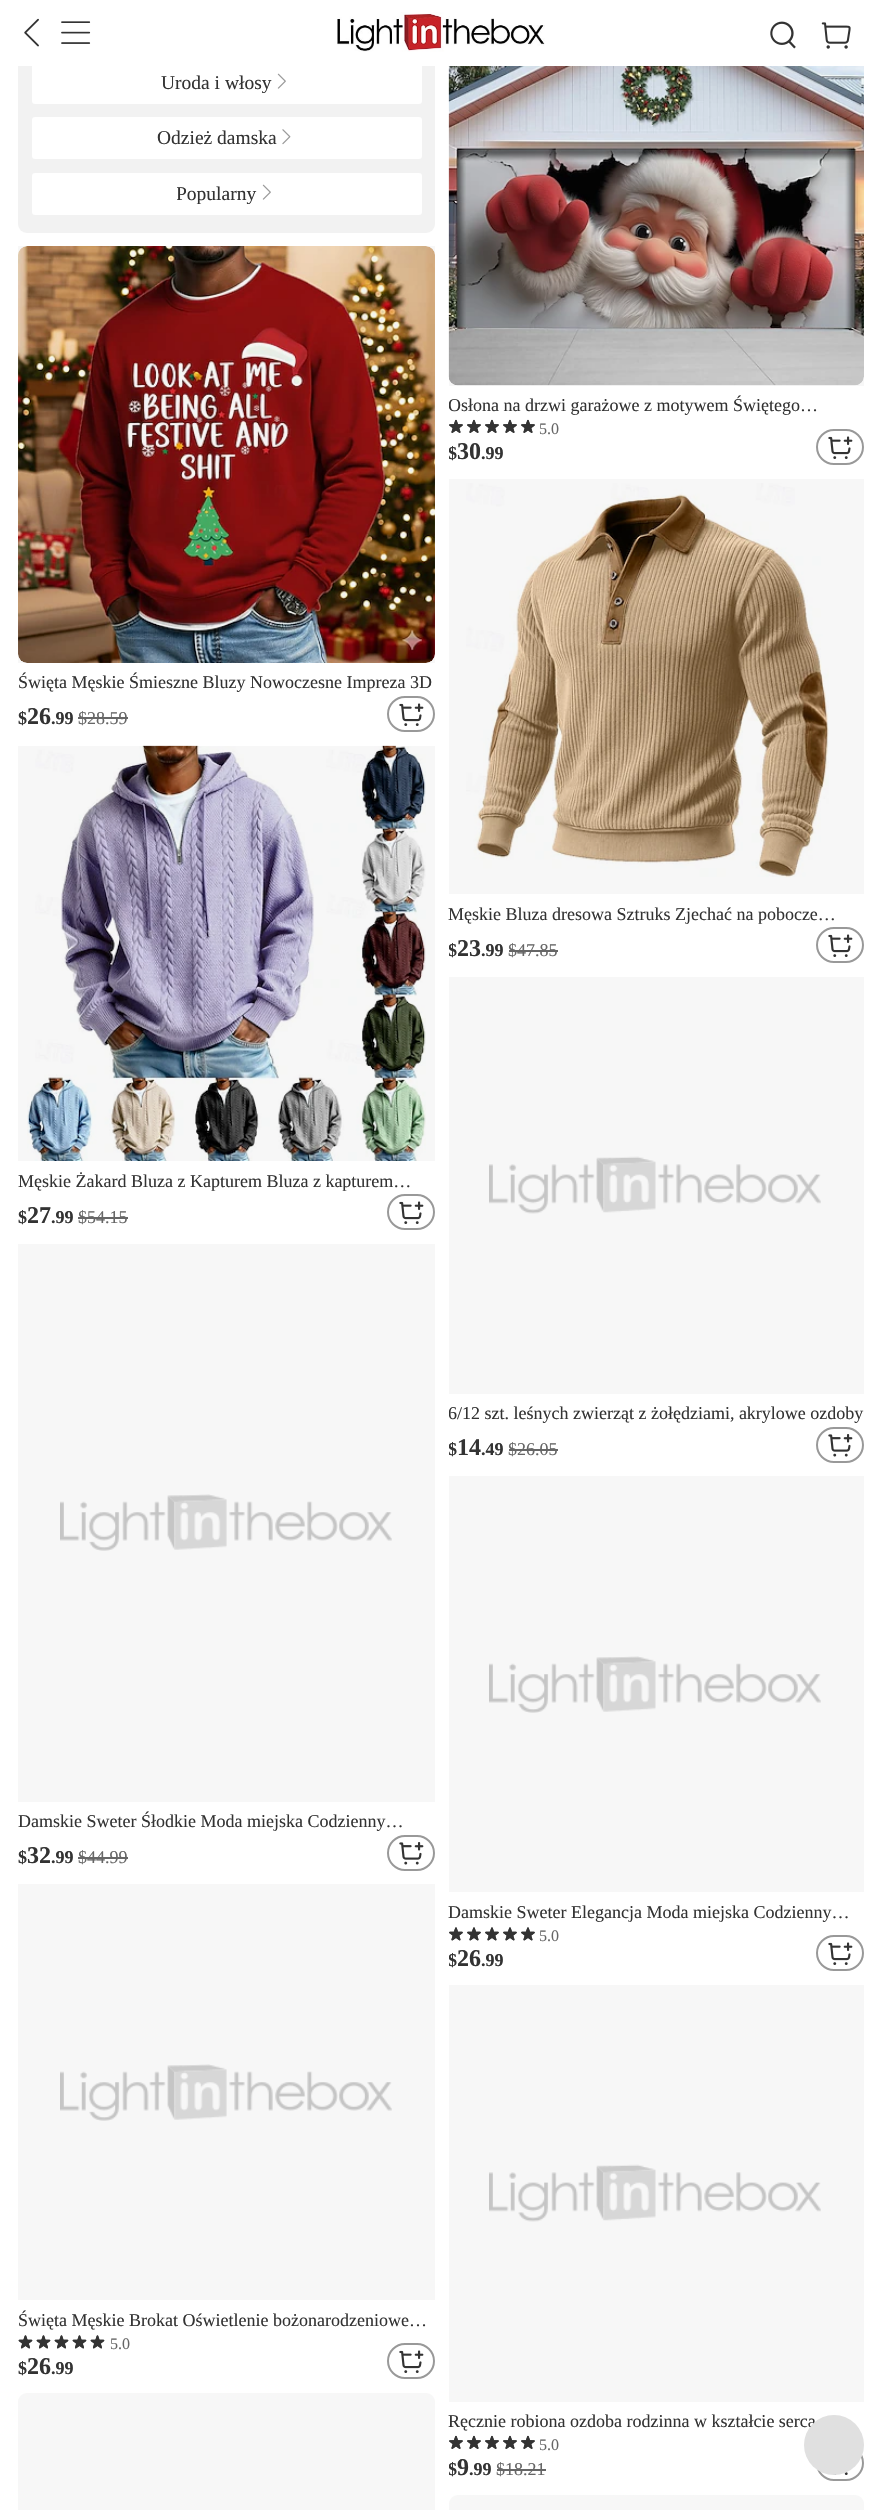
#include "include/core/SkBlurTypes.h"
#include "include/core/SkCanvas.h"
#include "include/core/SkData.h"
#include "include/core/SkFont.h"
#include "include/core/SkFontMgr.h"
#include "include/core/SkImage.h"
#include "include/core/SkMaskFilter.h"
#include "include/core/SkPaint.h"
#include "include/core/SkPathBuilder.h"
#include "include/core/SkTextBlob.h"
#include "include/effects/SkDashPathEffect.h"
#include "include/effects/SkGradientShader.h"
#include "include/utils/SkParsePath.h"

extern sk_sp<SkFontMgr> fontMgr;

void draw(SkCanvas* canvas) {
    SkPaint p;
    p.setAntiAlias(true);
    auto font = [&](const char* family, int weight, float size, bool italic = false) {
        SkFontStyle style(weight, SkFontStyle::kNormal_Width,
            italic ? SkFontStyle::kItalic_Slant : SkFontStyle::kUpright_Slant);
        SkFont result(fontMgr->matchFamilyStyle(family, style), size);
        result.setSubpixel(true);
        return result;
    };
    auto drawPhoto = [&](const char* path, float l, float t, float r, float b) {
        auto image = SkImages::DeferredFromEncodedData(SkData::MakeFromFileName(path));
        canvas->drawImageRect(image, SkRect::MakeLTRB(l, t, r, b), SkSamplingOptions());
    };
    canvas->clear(0xFFFFFFFF);
    p.setColor(0xFFF2F2F2);
    canvas->drawRoundRect(SkRect::MakeLTRB(18, -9, 435, 233), 9, 9, p);
    p.setColor(0xFFFFFFFF);
    canvas->drawRoundRect(SkRect::MakeLTRB(32, 62, 422, 104), 3, 3, p);
    canvas->drawRect(SkRect::MakeLTRB(18, 0, 435, 66), p);
    drawPhoto("media/1.png", 24, 18, 39, 47);
    drawPhoto("media/2.png", 61, 21, 91, 44);
    drawPhoto("media/3.png", 337, 12, 545, 52);
    drawPhoto("media/4.png", 770, 21, 796, 49);
    drawPhoto("media/5.png", 821, 22, 851, 49);
    canvas->save();
    canvas->clipRect(SkRect::MakeLTRB(161, 71, 272, 93));
    auto font1 = font("Liberation Serif", 400, 19.5f);
    p.setColor(0xFF333333);
    canvas->drawString("Uroda i włosy", 161, 89, font1, p);
    canvas->restore();
    drawPhoto("media/6.png", 277, 73, 286, 89);
    p.setColor(0xFFFFFFFF);
    canvas->drawRoundRect(SkRect::MakeLTRB(32, 117, 422, 159), 3, 3, p);
    p.setColor(0xFF333333);
    canvas->drawString("Odzież damska", 157, 144, font1, p);
    drawPhoto("media/7.png", 282, 129, 291, 145);
    p.setColor(0xFFFFFFFF);
    canvas->drawRoundRect(SkRect::MakeLTRB(32, 173, 422, 215), 3, 3, p);
    canvas->save();
    canvas->clipRect(SkRect::MakeLTRB(177, 182, 257, 204));
    p.setColor(0xFF333333);
    canvas->drawString("Popularny", 176, 200, font1, p);
    canvas->restore();
    drawPhoto("media/6.png", 262, 184, 271, 200);
    drawPhoto("media/8.png", 18, 246, 435, 663);
    p.setColor(0x08000000);
    canvas->drawRect(SkRect::MakeLTRB(18, 246, 435, 663), p);
    auto font2 = font("Liberation Serif", 400, 18);
    p.setColor(0xFF333333);
    canvas->drawString("Święta Męskie Śmieszne Bluzy Nowoczesne Impreza 3D", 18, 688, font2, p);
    auto font3 = font("Liberation Serif", 700, 18);
    canvas->drawString("$", 18, 724, font3, p);
    auto font4 = font("Liberation Serif", 700, 24);
    canvas->drawString("26", 27, 724, font4, p);
    canvas->drawString(".99", 51, 724, font3, p);
    p.setColor(0xFF666666);
    canvas->drawString("$28.59", 78, 724, font2, p);
    canvas->drawRect(SkRect::MakeLTRB(78, 717, 128, 719), p);
    p.setStyle(SkPaint::kStroke_Style);
    p.setStrokeWidth(2);
    p.setColor(0xFF999999);
    canvas->drawRoundRect(SkRect::MakeLTRB(388, 697, 434, 731), 17, 17, p);
    drawPhoto("media/9.png", 399, 703, 424, 726);
    drawPhoto("media/10.png", 27, 745, 426, 1161);
    p.setStyle(SkPaint::kFill_Style);
    p.setColor(0x08000000);
    canvas->drawRect(SkRect::MakeLTRB(18, 746, 435, 1161), p);
    p.setColor(0xFF333333);
    canvas->drawString("Męskie Żakard Bluza z Kapturem Bluza z kapturem…", 18, 1187, font2, p);
    canvas->drawString("$", 18, 1223, font3, p);
    canvas->drawString("27", 27, 1223, font4, p);
    canvas->drawString(".99", 51, 1223, font3, p);
    p.setColor(0xFF666666);
    canvas->drawString("$54.15", 78, 1223, font2, p);
    canvas->drawRect(SkRect::MakeLTRB(78, 1217, 128, 1219), p);
    p.setStyle(SkPaint::kStroke_Style);
    p.setColor(0xFF999999);
    canvas->drawRoundRect(SkRect::MakeLTRB(388, 1195, 434, 1229), 17, 17, p);
    drawPhoto("media/9.png", 399, 1201, 424, 1224);
    drawPhoto("media/11.png", 60, 1494, 392, 1551);
    p.setStyle(SkPaint::kFill_Style);
    p.setColor(0x08000000);
    canvas->drawRect(SkRect::MakeLTRB(18, 1244, 435, 1802), p);
    p.setColor(0xFF333333);
    canvas->drawString("Damskie Sweter Śłodkie Moda miejska Codzienny…", 18, 1827, font2, p);
    canvas->drawString("$", 18, 1863, font3, p);
    canvas->drawString("32", 27, 1863, font4, p);
    canvas->drawString(".99", 51, 1863, font3, p);
    p.setColor(0xFF666666);
    canvas->drawString("$44.99", 78, 1863, font2, p);
    canvas->drawRect(SkRect::MakeLTRB(78, 1857, 128, 1859), p);
    p.setStyle(SkPaint::kStroke_Style);
    p.setColor(0xFF999999);
    canvas->drawRoundRect(SkRect::MakeLTRB(388, 1836, 434, 1870), 17, 17, p);
    drawPhoto("media/12.png", 399, 1842, 424, 1865);
    drawPhoto("media/11.png", 60, 2064, 392, 2121);
    p.setStyle(SkPaint::kFill_Style);
    p.setColor(0x08000000);
    canvas->drawRect(SkRect::MakeLTRB(18, 1884, 435, 2300), p);
    p.setColor(0xFF333333);
    canvas->drawString("Święta Męskie Brokat Oświetlenie bożonarodzeniowe…", 18, 2326, font2, p);
    canvas->drawString("$", 18, 2374, font3, p);
    canvas->drawString("26", 27, 2374, font4, p);
    canvas->drawString(".99", 51, 2374, font3, p);
    drawPhoto("media/13.png", 18, 2335, 33, 2349);
    drawPhoto("media/14.png", 18, 2335, 33, 2349);
    drawPhoto("media/13.png", 36, 2335, 51, 2349);
    drawPhoto("media/14.png", 36, 2335, 51, 2349);
    drawPhoto("media/13.png", 54, 2335, 69, 2349);
    drawPhoto("media/14.png", 54, 2335, 69, 2349);
    drawPhoto("media/13.png", 72, 2335, 87, 2349);
    drawPhoto("media/14.png", 72, 2335, 87, 2349);
    drawPhoto("media/13.png", 90, 2335, 105, 2349);
    drawPhoto("media/14.png", 90, 2335, 105, 2349);
    auto font5 = font("Liberation Serif", 400, 16);
    p.setColor(0xFF666666);
    canvas->drawString("5.0", 110, 2349, font5, p);
    p.setStyle(SkPaint::kStroke_Style);
    p.setColor(0xFF999999);
    canvas->drawRoundRect(SkRect::MakeLTRB(388, 2344, 434, 2378), 17, 17, p);
    drawPhoto("media/9.png", 399, 2350, 424, 2373);
    p.setStyle(SkPaint::kFill_Style);
    p.setColor(0xFFF7F7F7);
    canvas->drawRoundRect(SkRect::MakeLTRB(18, 2393, 435, 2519), 9, 9, p);
    drawPhoto("media/15.png", 448, 66, 864, 386);
    p.setColor(0x08000000);
    canvas->drawRect(SkRect::MakeLTRB(449, 66, 864, 386), p);
    canvas->save();
    canvas->clipRect(SkRect::MakeLTRB(449, 393, 864, 417));
    p.setColor(0xFF333333);
    canvas->drawString("Osłona na drzwi garażowe z motywem Świętego…", 448, 411, font2, p);
    canvas->restore();
    canvas->save();
    canvas->clipRect(SkRect::MakeLTRB(449, 438, 804, 465));
    canvas->drawString("$", 448, 459, font3, p);
    canvas->restore();
    canvas->drawString("30", 457, 459, font4, p);
    canvas->drawString(".99", 481, 459, font3, p);
    drawPhoto("media/16.png", 449, 419, 463, 433);
    drawPhoto("media/17.png", 449, 419, 463, 433);
    drawPhoto("media/16.png", 467, 419, 481, 433);
    drawPhoto("media/17.png", 467, 419, 481, 433);
    drawPhoto("media/16.png", 485, 419, 499, 433);
    drawPhoto("media/17.png", 485, 419, 499, 433);
    drawPhoto("media/16.png", 503, 419, 517, 433);
    drawPhoto("media/17.png", 503, 419, 517, 433);
    drawPhoto("media/16.png", 521, 419, 535, 433);
    drawPhoto("media/17.png", 521, 419, 535, 433);
    p.setColor(0xFF666666);
    canvas->drawString("5.0", 539, 434, font5, p);
    p.setStyle(SkPaint::kStroke_Style);
    p.setColor(0xFF999999);
    canvas->drawRoundRect(SkRect::MakeLTRB(817, 430, 863, 464), 17, 17, p);
    drawPhoto("media/9.png", 828, 436, 853, 459);
    drawPhoto("media/18.png", 466, 483, 829, 878);
    p.setStyle(SkPaint::kFill_Style);
    p.setColor(0x08000000);
    canvas->drawRect(SkRect::MakeLTRB(449, 479, 864, 894), p);
    p.setColor(0xFF333333);
    canvas->drawString("Męskie Bluza dresowa Sztruks Zjechać na pobocze…", 448, 920, font2, p);
    canvas->save();
    canvas->clipRect(SkRect::MakeLTRB(449, 927, 804, 962));
    canvas->drawString("$", 448, 956, font3, p);
    canvas->restore();
    canvas->drawString("23", 457, 956, font4, p);
    canvas->drawString(".99", 481, 956, font3, p);
    p.setColor(0xFF666666);
    canvas->drawString("$47.85", 508, 956, font2, p);
    canvas->drawRect(SkRect::MakeLTRB(509, 950, 558, 952), p);
    p.setStyle(SkPaint::kStroke_Style);
    p.setColor(0xFF999999);
    canvas->drawRoundRect(SkRect::MakeLTRB(817, 928, 863, 962), 17, 17, p);
    drawPhoto("media/9.png", 828, 934, 853, 957);
    drawPhoto("media/19.png", 489, 1156, 821, 1214);
    p.setStyle(SkPaint::kFill_Style);
    p.setColor(0x08000000);
    canvas->drawRect(SkRect::MakeLTRB(449, 977, 864, 1394), p);
    canvas->save();
    canvas->clipRect(SkRect::MakeLTRB(449, 1401, 864, 1425));
    p.setColor(0xFF333333);
    canvas->drawString("6/12 szt. leśnych zwierząt z żołędziami, akrylowe ozdoby", 448, 1419, font2, p);
    canvas->restore();
    canvas->save();
    canvas->clipRect(SkRect::MakeLTRB(449, 1427, 804, 1461));
    canvas->drawString("$", 448, 1455, font3, p);
    canvas->restore();
    canvas->drawString("14", 457, 1455, font4, p);
    canvas->drawString(".49", 481, 1455, font3, p);
    p.setColor(0xFF666666);
    canvas->drawString("$26.05", 508, 1455, font2, p);
    canvas->drawRect(SkRect::MakeLTRB(509, 1449, 558, 1451), p);
    p.setStyle(SkPaint::kStroke_Style);
    p.setColor(0xFF999999);
    canvas->drawRoundRect(SkRect::MakeLTRB(817, 1428, 863, 1462), 17, 17, p);
    drawPhoto("media/12.png", 828, 1434, 853, 1457);
    drawPhoto("media/20.png", 489, 1656, 821, 1713);
    p.setStyle(SkPaint::kFill_Style);
    p.setColor(0x08000000);
    canvas->drawRect(SkRect::MakeLTRB(449, 1476, 864, 1892), p);
    p.setColor(0xFF333333);
    canvas->drawString("Damskie Sweter Elegancja Moda miejska Codzienny…", 448, 1918, font2, p);
    canvas->save();
    canvas->clipRect(SkRect::MakeLTRB(449, 1944, 804, 1971));
    canvas->drawString("$", 448, 1966, font3, p);
    canvas->restore();
    canvas->drawString("26", 457, 1966, font4, p);
    canvas->drawString(".99", 481, 1966, font3, p);
    drawPhoto("media/21.png", 449, 1927, 463, 1941);
    drawPhoto("media/22.png", 449, 1927, 463, 1941);
    drawPhoto("media/21.png", 467, 1927, 481, 1941);
    drawPhoto("media/22.png", 467, 1927, 481, 1941);
    drawPhoto("media/21.png", 485, 1927, 499, 1941);
    drawPhoto("media/22.png", 485, 1927, 499, 1941);
    drawPhoto("media/21.png", 503, 1927, 517, 1941);
    drawPhoto("media/22.png", 503, 1927, 517, 1941);
    drawPhoto("media/21.png", 521, 1927, 535, 1941);
    drawPhoto("media/22.png", 521, 1927, 535, 1941);
    p.setColor(0xFF666666);
    canvas->drawString("5.0", 539, 1941, font5, p);
    p.setStyle(SkPaint::kStroke_Style);
    p.setColor(0xFF999999);
    canvas->drawRoundRect(SkRect::MakeLTRB(817, 1936, 863, 1970), 17, 17, p);
    drawPhoto("media/9.png", 828, 1942, 853, 1965);
    drawPhoto("media/19.png", 489, 2164, 821, 2222);
    p.setStyle(SkPaint::kFill_Style);
    p.setColor(0x08000000);
    canvas->drawRect(SkRect::MakeLTRB(449, 1985, 864, 2402), p);
    p.setColor(0xFF333333);
    canvas->drawString("Ręcznie robiona ozdoba rodzinna w kształcie serca", 448, 2427, font2, p);
    canvas->save();
    canvas->clipRect(SkRect::MakeLTRB(449, 2454, 804, 2481));
    canvas->drawString("$", 448, 2475, font3, p);
    canvas->restore();
    canvas->drawString("9", 457, 2475, font4, p);
    canvas->drawString(".99", 469, 2475, font3, p);
    p.setColor(0xFF666666);
    canvas->drawString("$18.21", 496, 2475, font2, p);
    canvas->drawRect(SkRect::MakeLTRB(497, 2469, 546, 2471), p);
    drawPhoto("media/16.png", 449, 2435, 463, 2449);
    drawPhoto("media/17.png", 449, 2435, 463, 2449);
    drawPhoto("media/16.png", 467, 2435, 481, 2449);
    drawPhoto("media/17.png", 467, 2435, 481, 2449);
    drawPhoto("media/16.png", 485, 2435, 499, 2449);
    drawPhoto("media/17.png", 485, 2435, 499, 2449);
    drawPhoto("media/16.png", 503, 2435, 517, 2449);
    drawPhoto("media/17.png", 503, 2435, 517, 2449);
    drawPhoto("media/16.png", 521, 2435, 535, 2449);
    drawPhoto("media/17.png", 521, 2435, 535, 2449);
    canvas->drawString("5.0", 539, 2450, font5, p);
    p.setStyle(SkPaint::kStroke_Style);
    p.setColor(0xFF999999);
    canvas->drawRoundRect(SkRect::MakeLTRB(817, 2446, 863, 2480), 17, 17, p);
    drawPhoto("media/23.png", 833, 2472, 848, 2475);
    p.setStyle(SkPaint::kFill_Style);
    p.setColor(0xFFF7F7F7);
    canvas->drawRoundRect(SkRect::MakeLTRB(449, 2495, 864, 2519), 9, 9, p);
    p.setColor(0xFFE0E0E0);
    canvas->drawCircle(834, 2445, 30, p);
}
